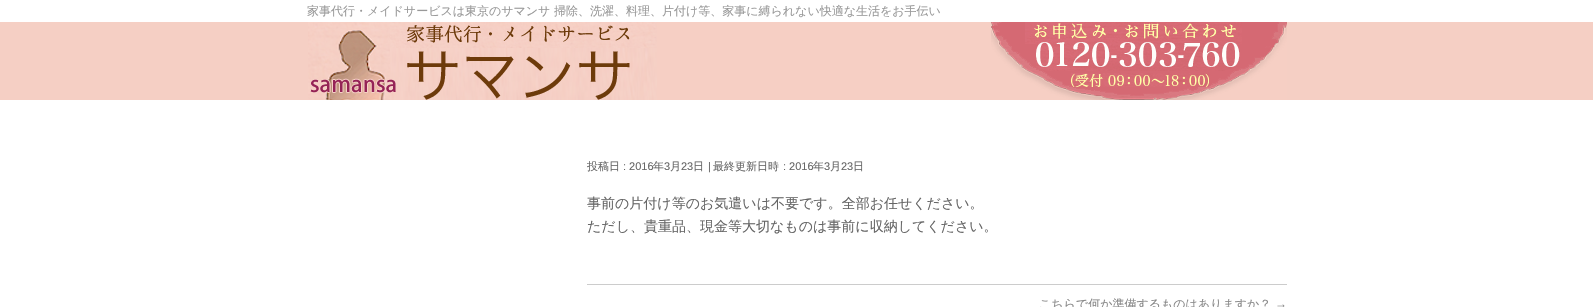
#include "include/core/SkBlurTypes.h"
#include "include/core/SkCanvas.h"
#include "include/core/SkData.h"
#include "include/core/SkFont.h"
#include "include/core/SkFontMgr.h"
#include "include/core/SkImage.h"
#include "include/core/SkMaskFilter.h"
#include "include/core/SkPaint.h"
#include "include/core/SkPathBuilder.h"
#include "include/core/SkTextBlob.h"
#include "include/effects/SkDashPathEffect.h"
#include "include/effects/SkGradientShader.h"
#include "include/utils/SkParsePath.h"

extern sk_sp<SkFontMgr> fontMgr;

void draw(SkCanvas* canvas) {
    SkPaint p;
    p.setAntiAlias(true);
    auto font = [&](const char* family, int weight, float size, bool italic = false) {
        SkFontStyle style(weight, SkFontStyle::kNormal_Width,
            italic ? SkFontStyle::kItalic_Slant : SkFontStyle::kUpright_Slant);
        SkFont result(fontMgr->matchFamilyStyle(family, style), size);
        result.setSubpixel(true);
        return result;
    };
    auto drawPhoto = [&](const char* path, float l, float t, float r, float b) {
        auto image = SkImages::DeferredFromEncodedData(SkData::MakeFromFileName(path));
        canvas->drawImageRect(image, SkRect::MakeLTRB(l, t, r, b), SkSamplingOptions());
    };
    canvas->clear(0xFFFFFFFF);
    auto font1 = font("WenQuanYi Zen Hei", 500, 12);
    p.setColor(0xFF999999);
    canvas->drawString("家事代行・メイドサービスは東京のサマンサ 掃除、洗濯、料理、片付け等、家事に縛られない快適な生活をお手伝い", 307, 15, font1, p);
    p.setColor(0xFFF5CFC4);
    canvas->drawRect(SkRect::MakeLTRB(0, 22, 1593, 100), p);
    drawPhoto("media/1.png", 308, 22, 1287, 100);
    auto font2 = font("WenQuanYi Zen Hei", 500, 11);
    p.setColor(0xFF666666);
    canvas->drawString("投稿日", 587, 170, font2, p);
    auto font3 = font("Liberation Sans", 400, 11);
    canvas->drawString(": 2016", 623, 170, font3, p);
    canvas->drawString("年", 653, 170, font2, p);
    canvas->drawString("3", 664, 170, font3, p);
    canvas->drawString("月", 670, 170, font2, p);
    canvas->drawString("23", 681, 170, font3, p);
    canvas->drawString("日", 693, 170, font2, p);
    canvas->drawString("|", 708, 170, font3, p);
    canvas->drawString("最終更新日時", 713, 170, font2, p);
    canvas->drawString(": 2016", 783, 170, font3, p);
    canvas->drawString("年", 813, 170, font2, p);
    canvas->drawString("3", 824, 170, font3, p);
    canvas->drawString("月", 830, 170, font2, p);
    canvas->drawString("23", 841, 170, font3, p);
    canvas->drawString("日", 853, 170, font2, p);
    auto font4 = font("WenQuanYi Zen Hei", 500, 14);
    canvas->drawString("事前の片付け等のお気遣いは不要です。全部お任せください。", 587, 208, font4, p);
    canvas->drawString("ただし、貴重品、現金等大切なものは事前に収納してください。", 587, 231, font4, p);
    p.setColor(0xFFCCCCCC);
    canvas->drawRect(SkRect::MakeLTRB(587, 284, 1287, 285), p);
    p.setColor(0xFF888888);
    canvas->drawString("こちらで何か準備するものはありますか？", 1039, 308, font1, p);
    auto font5 = font("Liberation Sans", 400, 12);
    canvas->drawString("→", 1275, 308, font5, p);
}
